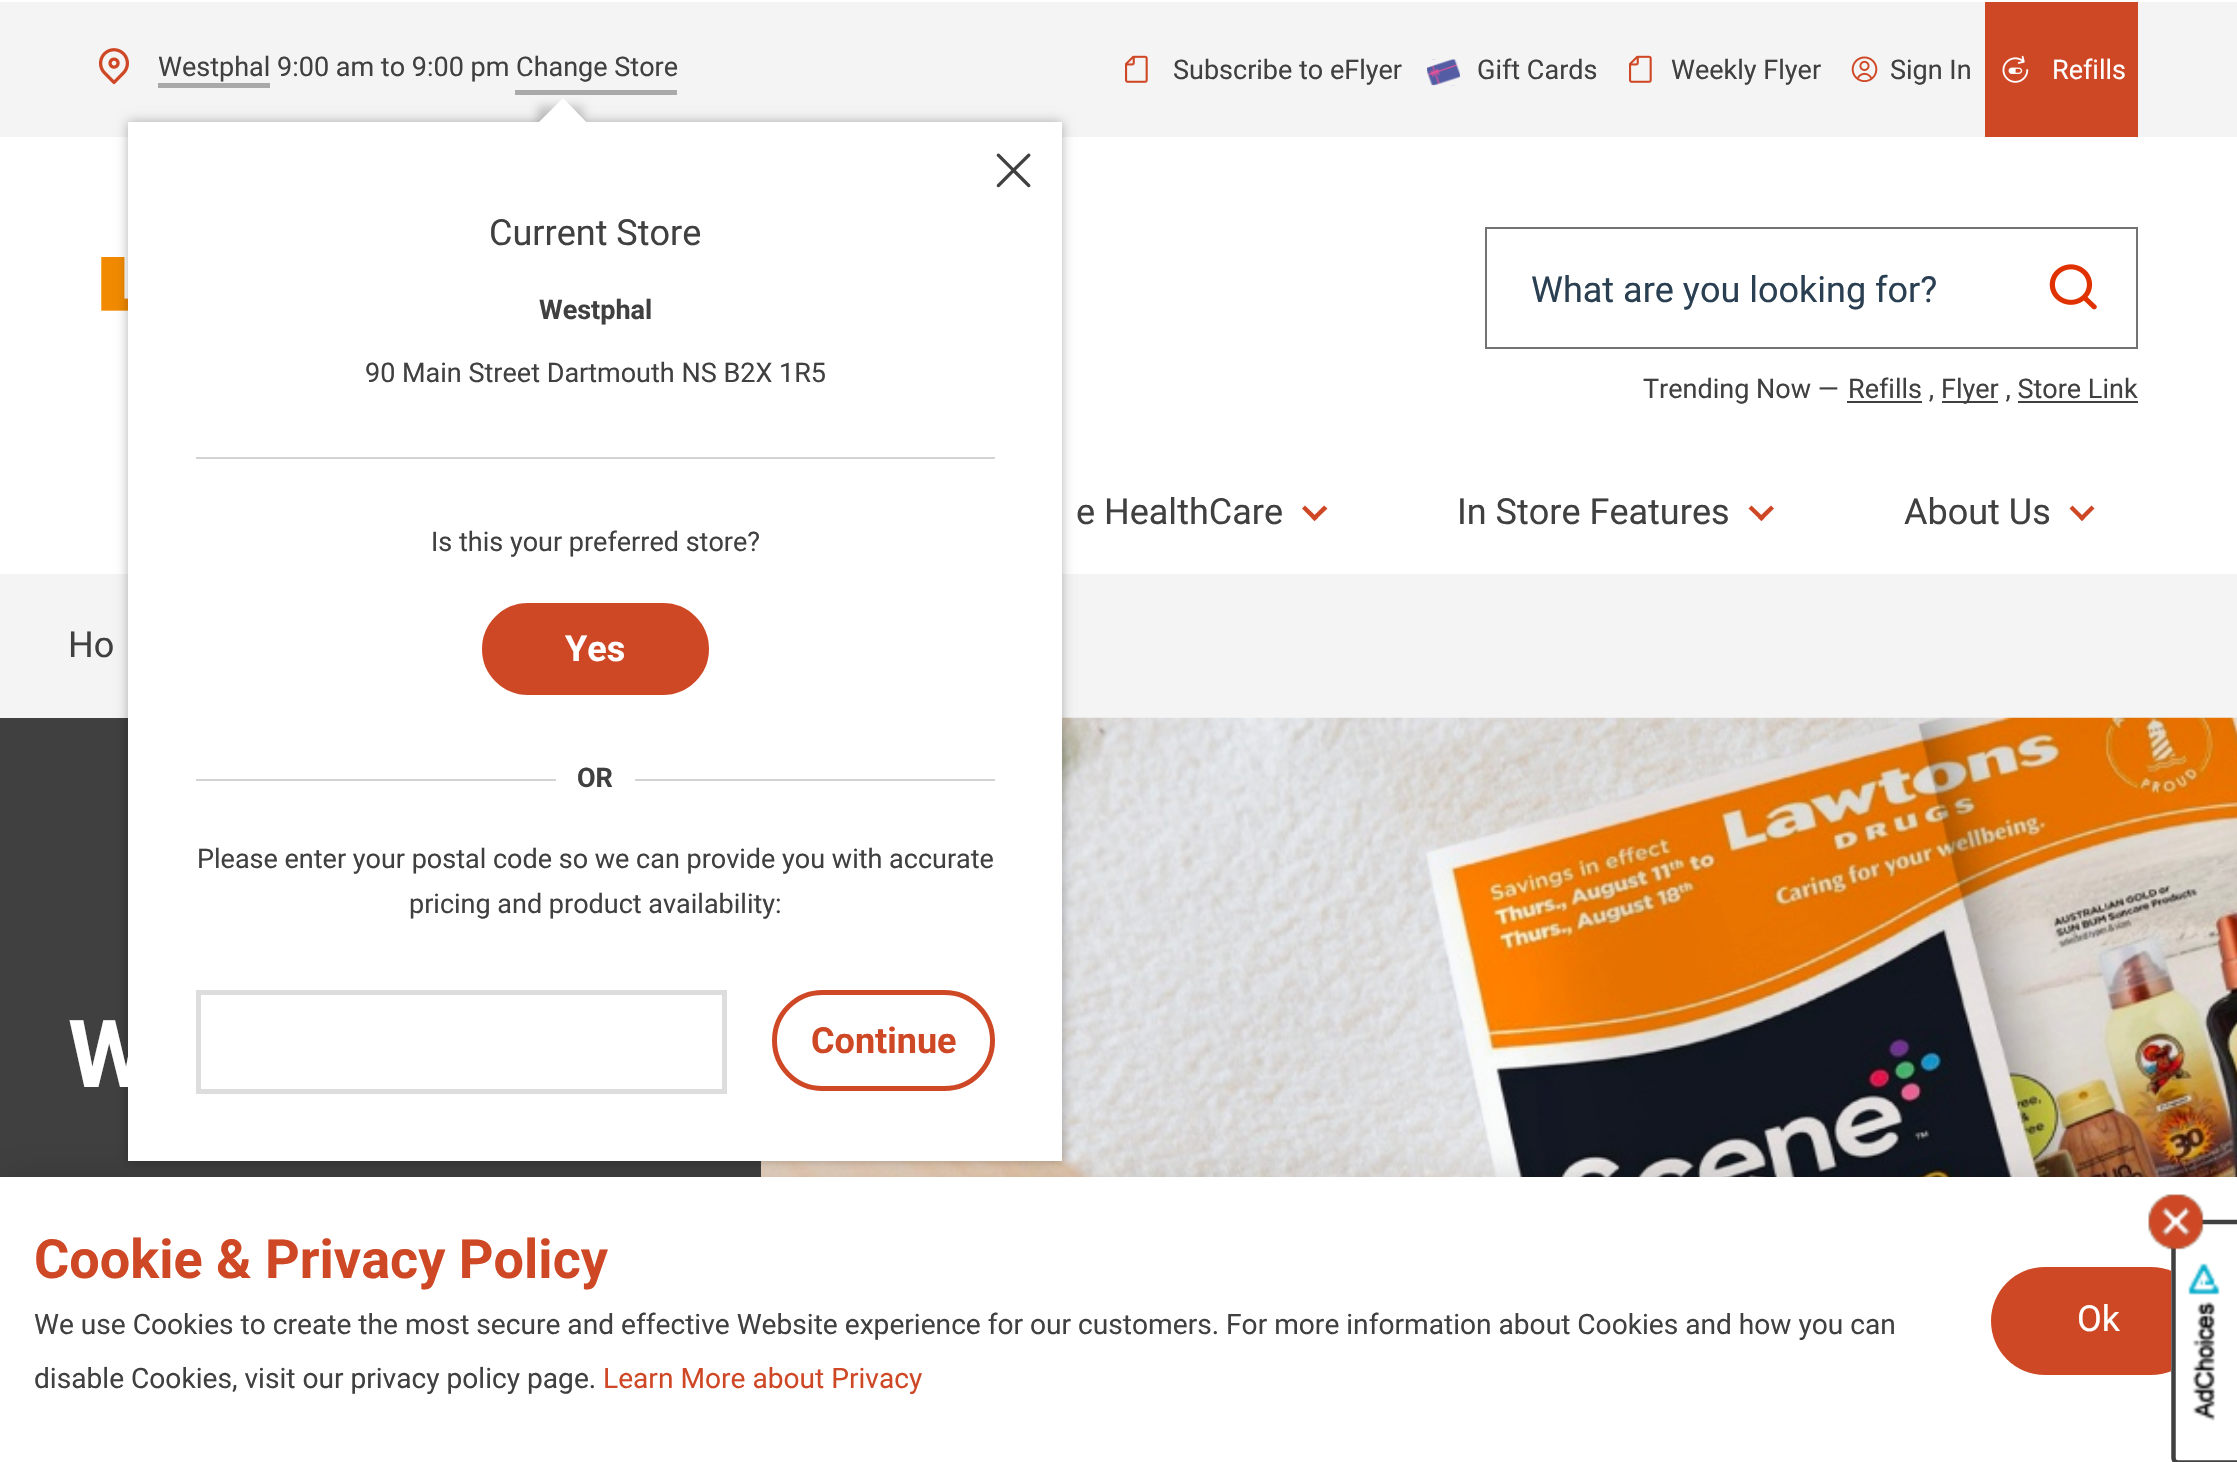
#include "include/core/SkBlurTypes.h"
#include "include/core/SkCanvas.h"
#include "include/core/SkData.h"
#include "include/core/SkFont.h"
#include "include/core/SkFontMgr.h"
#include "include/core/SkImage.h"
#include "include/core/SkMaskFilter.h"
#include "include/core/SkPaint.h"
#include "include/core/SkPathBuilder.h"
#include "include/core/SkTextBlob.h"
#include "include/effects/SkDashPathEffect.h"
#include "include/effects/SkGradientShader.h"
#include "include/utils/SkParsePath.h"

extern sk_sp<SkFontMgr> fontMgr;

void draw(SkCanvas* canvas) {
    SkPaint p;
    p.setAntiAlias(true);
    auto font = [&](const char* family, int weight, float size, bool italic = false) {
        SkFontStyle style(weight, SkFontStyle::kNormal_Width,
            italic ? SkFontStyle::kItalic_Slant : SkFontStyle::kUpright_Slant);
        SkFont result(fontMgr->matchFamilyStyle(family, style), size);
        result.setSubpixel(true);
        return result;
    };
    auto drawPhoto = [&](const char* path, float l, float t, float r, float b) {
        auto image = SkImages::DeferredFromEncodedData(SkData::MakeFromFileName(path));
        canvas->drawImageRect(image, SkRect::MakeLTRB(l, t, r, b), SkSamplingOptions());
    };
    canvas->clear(0xFFFFFFFF);
    p.setColor(0xFFF4F4F4);
    canvas->drawRect(SkRect::MakeLTRB(0, 2, 2237, 137), p);
    drawPhoto("media/1.png", 98, 48, 129, 85);
    p.setColor(0xFFA9A9A9);
    canvas->drawRect(SkRect::MakeLTRB(158, 83, 270, 88), p);
    auto font1 = font("Roboto", 400, 27);
    p.setColor(0xFF404040);
    canvas->drawString("Westphal 9:00 am to 9:00 pm Change Store", 158, 76, font1, p);
    p.setColor(0xFFA9A9A9);
    canvas->drawRect(SkRect::MakeLTRB(515, 90, 677, 95), p);
    drawPhoto("media/7.png", 101, 257, 128, 311);
    p.setColor(0xFFF4F4F4);
    canvas->drawRect(SkRect::MakeLTRB(0, 574, 2237, 718), p);
    p.setColor(0xFF404040);
    canvas->drawRect(SkRect::MakeLTRB(0, 718, 761, 1177), p);
    drawPhoto("media/9.png", 761, 717, 2237, 1177);
    p.setColor(0x26000000);
    p.setMaskFilter(SkMaskFilter::MakeBlur(kNormal_SkBlurStyle, 17));
    canvas->drawRect(SkRect::MakeLTRB(5, 1177, 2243, 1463), p);
    p.setMaskFilter(nullptr);
    p.setColor(0xFFFFFFFF);
    canvas->drawRect(SkRect::MakeLTRB(0, 1177, 2237, 1462), p);
    p.setColor(0x4D000000);
    p.setMaskFilter(SkMaskFilter::MakeBlur(kNormal_SkBlurStyle, 5.5f));
    canvas->drawRect(SkRect::MakeLTRB(128, 122, 1062, 1161), p);
    p.setMaskFilter(nullptr);
    p.setColor(0xFFFFFFFF);
    canvas->drawRect(SkRect::MakeLTRB(128, 122, 1062, 1161), p);
    canvas->save();
    canvas->clipRect(SkRect::MakeLTRB(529, 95, 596, 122));
    p.setColor(0x33000000);
    p.setMaskFilter(SkMaskFilter::MakeBlur(kNormal_SkBlurStyle, 4.5f));
    canvas->drawRect(SkRect::MakeLTRB(538, 106, 583, 151), p);
    p.setMaskFilter(nullptr);
    canvas->restore();
    canvas->save();
    canvas->clipRect(SkRect::MakeLTRB(529, 95, 596, 122));
    p.setColor(0xFFFFFFFF);
    canvas->drawPath(SkPathBuilder().moveTo(563, 98).lineTo(594, 130).lineTo(562, 162).lineTo(531, 130).close().detach(), p);
    canvas->restore();
    drawPhoto("media/2.png", 996, 153, 1031, 188);
    p.setColor(0xFFD3D3D3);
    canvas->drawRect(SkRect::MakeLTRB(196, 457, 995, 459), p);
    auto font2 = font("Roboto", 400, 36);
    p.setColor(0xFF404040);
    canvas->drawString("Current Store", 489, 245, font2, p);
    auto font3 = font("Roboto", 700, 27);
    canvas->drawString("Westphal", 539, 319, font3, p);
    canvas->drawString("90 Main Street Dartmouth NS B2X 1R5", 365, 382, font1, p);
    p.setColor(0xFFD3D3D3);
    canvas->drawRect(SkRect::MakeLTRB(196, 779, 995, 781), p);
    p.setColor(0xFF404040);
    canvas->drawString("Is this your preferred store?", 431, 551, font1, p);
    p.setColor(0xFFCF4826);
    canvas->drawRoundRect(SkRect::MakeLTRB(484.5f, 605.5f, 706.5f, 692.5f), 43.5f, 43.5f, p);
    p.setStyle(SkPaint::kStroke_Style);
    p.setStrokeWidth(5);
    canvas->drawRoundRect(SkRect::MakeLTRB(484.5f, 605.5f, 706.5f, 692.5f), 43.5f, 43.5f, p);
    auto font4 = font("Roboto", 700, 36);
    p.setStyle(SkPaint::kFill_Style);
    p.setColor(0xFFFFFFFF);
    canvas->drawString("Yes", 565, 661, font4, p);
    canvas->drawRect(SkRect::MakeLTRB(556, 779, 635, 781), p);
    p.setColor(0xFF404040);
    canvas->drawString("OR", 577, 787, font3, p);
    canvas->drawString("Please enter your postal code so we can provide you with accurate", 197, 868, font1, p);
    canvas->drawString("pricing and product availability:", 409, 913, font1, p);
    p.setStyle(SkPaint::kStroke_Style);
    p.setColor(0xFFDDDDDD);
    canvas->drawRect(SkRect::MakeLTRB(198.5f, 992.5f, 724.5f, 1091.5f), p);
    p.setColor(0xFFCF4826);
    canvas->drawRoundRect(SkRect::MakeLTRB(774.5f, 992.5f, 992.5f, 1088.5f), 48, 48, p);
    p.setStyle(SkPaint::kFill_Style);
    canvas->drawString("Continue", 811, 1053, font4, p);
    drawPhoto("media/3.png", 1125, 55, 1148, 83);
    p.setColor(0xFF404040);
    canvas->drawString("Subscribe to eFlyer", 1173, 79, font1, p);
    drawPhoto("media/4.png", 1427, 59, 1460, 86);
    canvas->drawString("Gift Cards", 1477, 79, font1, p);
    drawPhoto("media/3.png", 1629, 55, 1652, 83);
    canvas->drawString("Weekly Flyer", 1671, 79, font1, p);
    drawPhoto("media/5.png", 1851, 56, 1878, 82);
    canvas->drawString("Sign In", 1890, 79, font1, p);
    p.setColor(0xFFCF4826);
    canvas->drawRect(SkRect::MakeLTRB(1985, 2, 2138, 137), p);
    drawPhoto("media/6.png", 2002, 55, 2029, 83);
    p.setColor(0xFFFFFFFF);
    canvas->drawString("Refills", 2052, 79, font1, p);
    p.setStyle(SkPaint::kStroke_Style);
    p.setStrokeWidth(2);
    p.setColor(0xFF737373);
    canvas->drawRect(SkRect::MakeLTRB(1486, 228, 2137, 348), p);
    p.setStyle(SkPaint::kFill_Style);
    p.setColor(0xFF2A4052);
    canvas->drawString("What are you looking for?", 1531, 302, font2, p);
    drawPhoto("media/8.png", 2049, 264, 2097, 310);
    p.setColor(0xFF404040);
    canvas->drawString("Trending Now —", 1643, 398, font1, p);
    canvas->drawRect(SkRect::MakeLTRB(1847, 401, 1922, 403), p);
    canvas->drawString("Refills ,", 1848, 398, font1, p);
    canvas->drawRect(SkRect::MakeLTRB(1942, 401, 1998, 403), p);
    canvas->drawString("Flyer , Store Link", 1941, 398, font1, p);
    canvas->drawRect(SkRect::MakeLTRB(2018, 401, 2138, 403), p);
    canvas->drawString("e HealthCare", 1076, 524, font2, p);
    p.setColor(0xFFCF4826);
    canvas->drawPath(SkPathBuilder().moveTo(1324, 505.5f).lineTo(1327.5f, 508.5f).lineTo(1314.5f, 521).lineTo(1311.5f, 518).close().detach(), p);
    canvas->drawPath(SkPathBuilder().moveTo(1305, 505.5f).lineTo(1318, 518).lineTo(1314.5f, 521).lineTo(1302, 508.5f).close().detach(), p);
    p.setColor(0xFF404040);
    canvas->drawString("In Store Features", 1457, 524, font2, p);
    p.setColor(0xFFCF4826);
    canvas->drawPath(SkPathBuilder().moveTo(1771, 505.5f).lineTo(1774, 508.5f).lineTo(1761.5f, 521).lineTo(1758, 518).close().detach(), p);
    canvas->drawPath(SkPathBuilder().moveTo(1751.5f, 505.5f).lineTo(1764.5f, 518).lineTo(1761.5f, 521).lineTo(1748.5f, 508.5f).close().detach(), p);
    p.setColor(0xFF404040);
    canvas->drawString("About Us", 1904, 524, font2, p);
    p.setColor(0xFFCF4826);
    canvas->drawPath(SkPathBuilder().moveTo(2091.5f, 505.5f).lineTo(2094.5f, 508.5f).lineTo(2082, 521).lineTo(2079, 518).close().detach(), p);
    canvas->drawPath(SkPathBuilder().moveTo(2072.5f, 505.5f).lineTo(2085, 518).lineTo(2082, 521).lineTo(2069.5f, 508.5f).close().detach(), p);
    p.setColor(0xFF404040);
    canvas->drawString("Ho", 68, 657, font2, p);
    auto font5 = font("Roboto", 700, 94);
    p.setColor(0xFFFFFFFF);
    canvas->drawString("W", 68, 1087, font5, p);
    auto font6 = font("Roboto", 700, 54);
    p.setColor(0xFFCF4826);
    canvas->drawString("Cookie & Privacy Policy", 34, 1278, font6, p);
    auto font7 = font("Roboto", 400, 28.12f);
    p.setColor(0xFF404040);
    canvas->drawString("We use Cookies to create the most secure and effective Website experience for our customers. For more information about Cookies and how you can", 34, 1334, font7, p);
    canvas->drawString("disable Cookies, visit our privacy policy page.", 34, 1388, font7, p);
    p.setColor(0xFFCF4826);
    canvas->drawString("Learn More about Privacy", 603, 1388, font7, p);
    canvas->drawRoundRect(SkRect::MakeLTRB(1991, 1267, 2205, 1375), 54, 54, p);
    p.setColor(0xFFFFFFFF);
    canvas->drawString("Ok", 2077, 1331, font2, p);
    canvas->drawPath(SkPathBuilder().moveTo(2171, 1458).lineTo(2171, 1226).cubicTo(2171, 1223, 2174, 1220, 2178, 1220).lineTo(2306, 1220).cubicTo(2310, 1220, 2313, 1223, 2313, 1226).lineTo(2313, 1458).cubicTo(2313, 1462, 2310, 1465, 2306, 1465).lineTo(2178, 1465).cubicTo(2174, 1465, 2171, 1462, 2171, 1458).close().detach(), p);
    p.setStyle(SkPaint::kStroke_Style);
    p.setStrokeWidth(4.5f);
    p.setColor(0xFF404040);
    canvas->drawPath(SkPathBuilder().moveTo(2173.5f, 1458).lineTo(2173.5f, 1226).cubicTo(2173.5f, 1224, 2175.5f, 1222, 2178, 1222).lineTo(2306, 1222).cubicTo(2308.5f, 1222, 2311, 1224, 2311, 1226).lineTo(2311, 1458).cubicTo(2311, 1460.5f, 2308.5f, 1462.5f, 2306, 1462.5f).lineTo(2178, 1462.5f).cubicTo(2175.5f, 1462.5f, 2173.5f, 1460.5f, 2173.5f, 1458).close().detach(), p);
    drawPhoto("media/10.png", 2148, 1194, 2204, 1250);
    drawPhoto("media/11.png", 2188, 1263, 2220, 1421);
}
